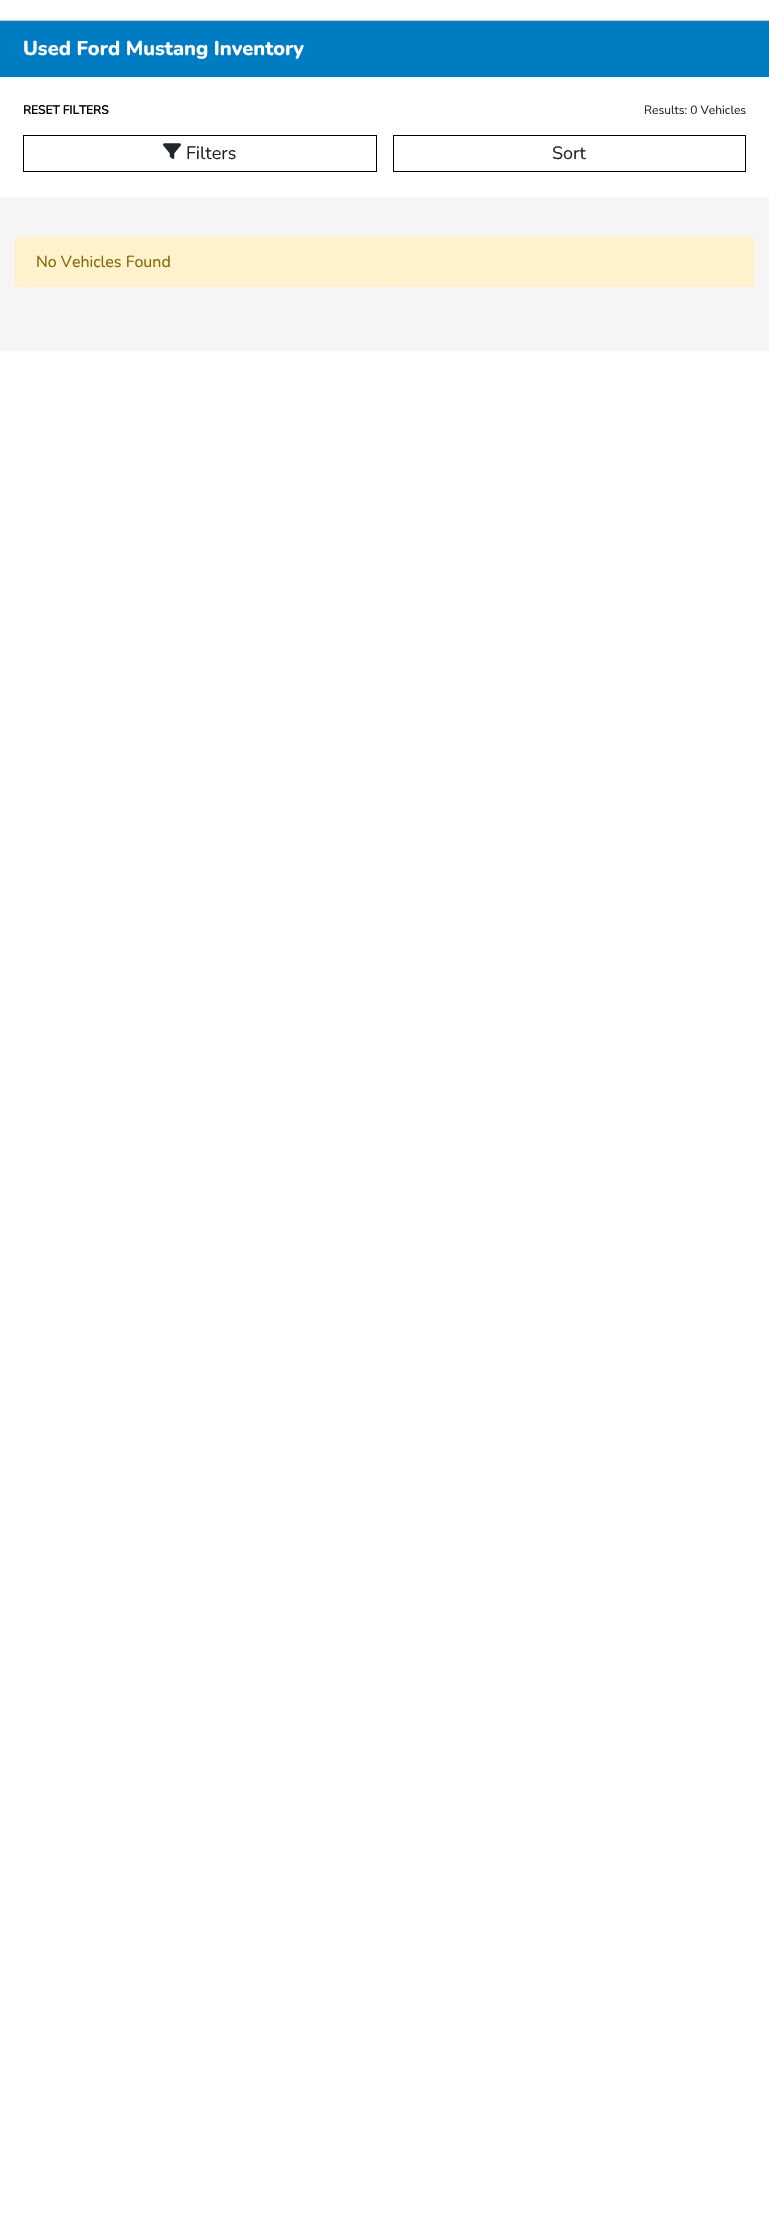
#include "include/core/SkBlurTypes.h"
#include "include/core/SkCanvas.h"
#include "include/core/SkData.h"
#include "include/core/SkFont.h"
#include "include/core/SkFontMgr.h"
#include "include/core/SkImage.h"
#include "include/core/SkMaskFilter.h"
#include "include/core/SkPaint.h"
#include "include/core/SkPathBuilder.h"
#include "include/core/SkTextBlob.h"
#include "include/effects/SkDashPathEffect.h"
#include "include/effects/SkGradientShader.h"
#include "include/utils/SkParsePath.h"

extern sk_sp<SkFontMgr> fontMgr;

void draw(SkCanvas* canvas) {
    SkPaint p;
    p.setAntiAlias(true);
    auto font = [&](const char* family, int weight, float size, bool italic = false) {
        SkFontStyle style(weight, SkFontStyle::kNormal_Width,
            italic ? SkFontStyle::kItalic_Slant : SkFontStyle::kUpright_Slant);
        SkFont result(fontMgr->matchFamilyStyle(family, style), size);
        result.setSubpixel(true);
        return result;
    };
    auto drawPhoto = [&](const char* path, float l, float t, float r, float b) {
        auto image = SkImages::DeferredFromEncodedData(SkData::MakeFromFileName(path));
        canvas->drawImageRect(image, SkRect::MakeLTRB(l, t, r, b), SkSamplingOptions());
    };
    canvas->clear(0xFFFFFFFF);
    {
        const struct { float l, t, r, b; SkColor color; } items[] = {
            {0, 197, 769, 351, 0xFFF5F5F5},
            {0, 21, 769, 77, 0xFF007CC3},
            {0, 20, 769, 21, 0xFFC6C6C6},
        };
        for (auto [l, t, r, b, color] : items) {
            p.setColor(color);
            canvas->drawRect(SkRect::MakeLTRB(l, t, r, b), p);
        }
    }
    auto font1 = font("Nunito", 800, 20);
    p.setColor(0xFFFFFFFF);
    canvas->drawString("Used Ford Mustang Inventory", 23, 55, font1, p);
    auto font2 = font("Nunito", 700, 12);
    p.setColor(0xFF000000);
    canvas->drawString("RESET FILTERS", 23, 114, font2, p);
    auto font3 = font("Nunito", 400, 12);
    p.setColor(0xFF212529);
    canvas->drawString("Results: 0 Vehicles", 644, 114, font3, p);
    p.setStyle(SkPaint::kStroke_Style);
    p.setStrokeWidth(1);
    p.setColor(0xFF000000);
    canvas->drawRect(SkRect::MakeLTRB(23.5f, 135.5f, 376.5f, 171.5f), p);
    drawPhoto("media/1.png", 163, 143, 181, 159);
    auto font4 = font("Nunito", 400, 18);
    p.setStyle(SkPaint::kFill_Style);
    p.setColor(0xFF212529);
    canvas->drawString("Filters", 186, 159, font4, p);
    p.setStyle(SkPaint::kStroke_Style);
    p.setColor(0xFF000000);
    canvas->drawRect(SkRect::MakeLTRB(393.5f, 135.5f, 745.5f, 171.5f), p);
    p.setStyle(SkPaint::kFill_Style);
    p.setColor(0xFF212529);
    canvas->drawString("Sort", 552, 159, font4, p);
    p.setColor(0xFFFFF3CD);
    canvas->drawRoundRect(SkRect::MakeLTRB(15.5f, 237.5f, 753.5f, 286.5f), 3.5f, 3.5f, p);
    p.setStyle(SkPaint::kStroke_Style);
    p.setColor(0xFFFFEEBA);
    canvas->drawRoundRect(SkRect::MakeLTRB(15.5f, 237.5f, 753.5f, 286.5f), 3.5f, 3.5f, p);
    auto font5 = font("Nunito", 400, 16);
    p.setStyle(SkPaint::kFill_Style);
    p.setColor(0xFF856404);
    canvas->drawString("No Vehicles Found", 36, 267, font5, p);
}
